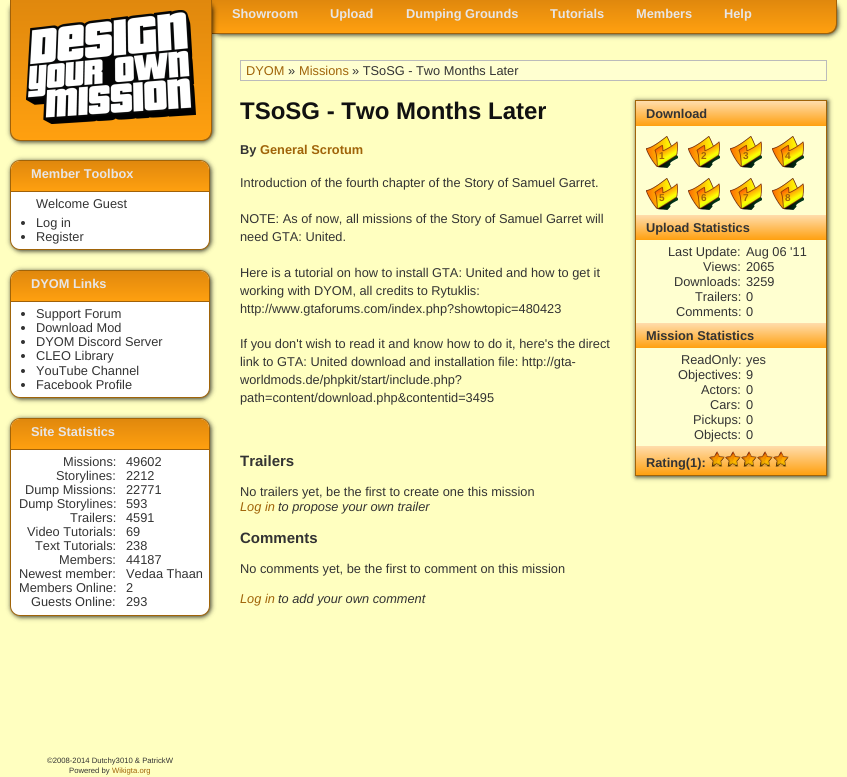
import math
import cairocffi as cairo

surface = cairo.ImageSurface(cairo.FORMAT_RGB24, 847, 777)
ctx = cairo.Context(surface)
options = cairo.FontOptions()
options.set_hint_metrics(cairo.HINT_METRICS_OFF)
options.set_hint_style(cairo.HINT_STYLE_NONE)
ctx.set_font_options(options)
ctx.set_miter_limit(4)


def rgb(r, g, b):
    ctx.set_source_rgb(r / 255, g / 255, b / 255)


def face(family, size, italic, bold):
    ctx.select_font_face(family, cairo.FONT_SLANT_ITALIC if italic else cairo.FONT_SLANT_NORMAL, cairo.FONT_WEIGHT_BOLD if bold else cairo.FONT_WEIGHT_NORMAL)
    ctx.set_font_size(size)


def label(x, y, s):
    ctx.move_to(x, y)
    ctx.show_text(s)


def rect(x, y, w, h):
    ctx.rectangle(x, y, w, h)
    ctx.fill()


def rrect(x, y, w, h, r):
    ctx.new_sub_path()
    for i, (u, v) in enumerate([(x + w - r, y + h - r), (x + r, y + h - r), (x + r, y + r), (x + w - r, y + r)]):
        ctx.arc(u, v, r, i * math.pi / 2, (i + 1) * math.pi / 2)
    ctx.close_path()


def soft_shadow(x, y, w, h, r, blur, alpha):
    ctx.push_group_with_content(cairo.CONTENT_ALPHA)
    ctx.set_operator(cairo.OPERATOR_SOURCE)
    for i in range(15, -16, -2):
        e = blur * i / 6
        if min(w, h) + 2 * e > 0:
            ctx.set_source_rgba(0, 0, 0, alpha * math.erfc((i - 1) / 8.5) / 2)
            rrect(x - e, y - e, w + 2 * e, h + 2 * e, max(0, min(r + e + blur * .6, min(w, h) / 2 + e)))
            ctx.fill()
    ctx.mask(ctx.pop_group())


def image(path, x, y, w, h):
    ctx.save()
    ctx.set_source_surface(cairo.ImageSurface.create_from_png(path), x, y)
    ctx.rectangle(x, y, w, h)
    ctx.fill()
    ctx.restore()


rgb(255, 255, 192)
ctx.paint()
rgb(0, 0, 0)
soft_shadow(211, 1, 627, 34, 10, 2.5, 0.8)
gradient = cairo.LinearGradient(210, 0, 210, 33)
gradient.add_color_stop_rgba(0, 0.878, 0.533, 0.051, 1)
gradient.add_color_stop_rgba(1, 1, 0.627, 0.059, 1)
ctx.set_source(gradient)
ctx.new_path()
ctx.move_to(210, 0)
ctx.line_to(836, 0)
ctx.line_to(836, 24)
ctx.curve_to(836, 29, 832, 33, 827, 33)
ctx.line_to(210, 33)
ctx.close_path()
ctx.fill()
rgb(160, 97, 9)
ctx.set_fill_rule(cairo.FILL_RULE_EVEN_ODD)
ctx.new_path()
ctx.move_to(210, 0)
ctx.line_to(837, 0)
ctx.line_to(837, 24)
ctx.curve_to(837, 30, 833, 34, 827, 34)
ctx.line_to(210, 34)
ctx.close_path()
ctx.move_to(210, 0)
ctx.line_to(836, 0)
ctx.line_to(836, 24)
ctx.curve_to(836, 29, 832, 33, 827, 33)
ctx.line_to(210, 33)
ctx.close_path()
ctx.fill()
rgb(0, 0, 0)
soft_shadow(11, 1, 202, 141, 10, 2.5, 0.8)
gradient = cairo.LinearGradient(11, 0, 11, 140)
gradient.add_color_stop_rgba(0, 0.878, 0.533, 0.051, 1)
gradient.add_color_stop_rgba(1, 1, 0.627, 0.059, 1)
ctx.set_source(gradient)
ctx.new_path()
ctx.move_to(11, 0)
ctx.line_to(211, 0)
ctx.line_to(211, 131)
ctx.curve_to(211, 136, 207, 140, 202, 140)
ctx.line_to(20, 140)
ctx.curve_to(15, 140, 11, 136, 11, 131)
ctx.close_path()
ctx.fill()
rgb(160, 97, 9)
ctx.new_path()
ctx.move_to(10, 0)
ctx.line_to(212, 0)
ctx.line_to(212, 131)
ctx.curve_to(212, 137, 208, 141, 202, 141)
ctx.line_to(20, 141)
ctx.curve_to(14, 141, 10, 137, 10, 131)
ctx.close_path()
ctx.move_to(11, 0)
ctx.line_to(211, 0)
ctx.line_to(211, 131)
ctx.curve_to(211, 136, 207, 140, 202, 140)
ctx.line_to(20, 140)
ctx.curve_to(15, 140, 11, 136, 11, 131)
ctx.close_path()
ctx.fill()
image('image0.png', 26, 10, 170, 114)
face('Liberation Sans', 12.8, 0, 1)
rgb(231, 229, 229)
label(232, 18, 'Showroom')
label(330, 18, 'Upload')
label(406, 18, 'Dumping Grounds')
label(550, 18, 'Tutorials')
label(636, 18, 'Members')
label(724, 18, 'Help')
rgb(0, 0, 0)
soft_shadow(11, 161, 200, 90, 10, 2.5, 0.8)
rgb(255, 255, 255)
rrect(10.5, 160.5, 199, 89, 9.5)
ctx.fill_preserve()
rgb(160, 100, 9)
ctx.set_line_width(1)
ctx.stroke()
gradient = cairo.LinearGradient(11, 161, 11, 191)
gradient.add_color_stop_rgba(0, 0.878, 0.533, 0.051, 1)
gradient.add_color_stop_rgba(1, 1, 0.627, 0.059, 1)
ctx.set_source(gradient)
ctx.new_path()
ctx.move_to(20, 161)
ctx.line_to(200, 161)
ctx.curve_to(205, 161, 209, 165, 209, 170)
ctx.line_to(209, 191)
ctx.line_to(11, 191)
ctx.line_to(11, 170)
ctx.curve_to(11, 165, 15, 161, 20, 161)
ctx.close_path()
ctx.fill()
rgb(160, 97, 9)
rect(11, 191, 198, 1)
rgb(231, 229, 229)
label(31, 178, 'Member Toolbox')
face('Liberation Sans', 12.8, 0, 0)
rgb(51, 51, 51)
label(36, 208, 'Welcome Guest')
ctx.new_path()
ctx.arc(23, 223, 2, 0, 2 * math.pi)
ctx.fill()
label(36, 227, 'Log in')
ctx.new_path()
ctx.arc(23, 237, 2, 0, 2 * math.pi)
ctx.fill()
label(36, 241, 'Register')
rgb(0, 0, 0)
soft_shadow(11, 271, 200, 128, 10, 2.5, 0.8)
rgb(255, 255, 255)
rrect(10.5, 270.5, 199, 127, 9.5)
ctx.fill_preserve()
rgb(160, 100, 9)
ctx.stroke()
gradient = cairo.LinearGradient(11, 271, 11, 301)
gradient.add_color_stop_rgba(0, 0.878, 0.533, 0.051, 1)
gradient.add_color_stop_rgba(1, 1, 0.627, 0.059, 1)
ctx.set_source(gradient)
ctx.new_path()
ctx.move_to(20, 271)
ctx.line_to(200, 271)
ctx.curve_to(205, 271, 209, 275, 209, 280)
ctx.line_to(209, 301)
ctx.line_to(11, 301)
ctx.line_to(11, 280)
ctx.curve_to(11, 275, 15, 271, 20, 271)
ctx.close_path()
ctx.fill()
rgb(160, 97, 9)
rect(11, 301, 198, 1)
face('Liberation Sans', 12.8, 0, 1)
rgb(231, 229, 229)
label(31, 288, 'DYOM Links')
rgb(51, 51, 51)
ctx.new_path()
ctx.arc(23, 314, 2, 0, 2 * math.pi)
ctx.fill()
face('Liberation Sans', 12.8, 0, 0)
label(36, 318, 'Support Forum')
ctx.new_path()
ctx.arc(23, 328, 2, 0, 2 * math.pi)
ctx.fill()
label(36, 332, 'Download Mod')
ctx.new_path()
ctx.arc(23, 342, 2, 0, 2 * math.pi)
ctx.fill()
label(36, 346, 'DYOM Discord Server')
ctx.new_path()
ctx.arc(23, 356, 2, 0, 2 * math.pi)
ctx.fill()
label(36, 360, 'CLEO Library')
ctx.new_path()
ctx.arc(23, 371, 2, 0, 2 * math.pi)
ctx.fill()
label(36, 375, 'YouTube Channel')
ctx.new_path()
ctx.arc(23, 385, 2, 0, 2 * math.pi)
ctx.fill()
label(36, 389, 'Facebook Profile')
rgb(0, 0, 0)
soft_shadow(11, 419, 200, 198, 10, 2.5, 0.8)
rgb(255, 255, 255)
rrect(10.5, 418.5, 199, 197, 9.5)
ctx.fill_preserve()
rgb(160, 100, 9)
ctx.stroke()
gradient = cairo.LinearGradient(11, 419, 11, 449)
gradient.add_color_stop_rgba(0, 0.878, 0.533, 0.051, 1)
gradient.add_color_stop_rgba(1, 1, 0.627, 0.059, 1)
ctx.set_source(gradient)
ctx.new_path()
ctx.move_to(20, 419)
ctx.line_to(200, 419)
ctx.curve_to(205, 419, 209, 423, 209, 428)
ctx.line_to(209, 449)
ctx.line_to(11, 449)
ctx.line_to(11, 428)
ctx.curve_to(11, 423, 15, 419, 20, 419)
ctx.close_path()
ctx.fill()
rgb(160, 97, 9)
rect(11, 449, 198, 1)
face('Liberation Sans', 12.8, 0, 1)
rgb(231, 229, 229)
label(31, 436, 'Site Statistics')
face('Liberation Sans', 12.8, 0, 0)
rgb(51, 51, 51)
label(63, 466, 'Missions:')
label(126, 466, '49602')
label(56, 480, 'Storylines:')
label(126, 480, '2212')
label(25, 494, 'Dump Missions:')
label(126, 494, '22771')
label(19, 508, 'Dump Storylines:')
label(126, 508, '593')
label(70, 522, 'Trailers:')
label(126, 522, '4591')
label(27, 536, 'Video Tutorials:')
label(126, 536, '69')
label(35, 550, 'Text Tutorials:')
label(126, 550, '238')
label(59, 564, 'Members:')
label(126, 564, '44187')
label(19, 578, 'Newest member:')
label(126, 578, 'Vedaa Thaan')
label(19, 592, 'Members Online:')
label(126, 592, '2')
label(31, 606, 'Guests Online:')
label(126, 606, '293')
face('Liberation Sans', 7.7, 0, 0)
label(47, 763, '©2008-2014 Dutchy3010 & PatrickW')
label(69, 773, 'Powered by')
rgb(160, 100, 9)
label(112, 773, 'Wikigta.org')
rgb(255, 255, 208)
ctx.rectangle(240.5, 60.5, 586, 20)
ctx.fill_preserve()
rgb(187, 187, 187)
ctx.stroke()
face('Liberation Sans', 12.8, 0, 0)
rgb(160, 100, 9)
label(246, 75, 'DYOM')
rgb(51, 51, 51)
label(288, 75, '»')
rgb(160, 100, 9)
label(299, 75, 'Missions')
rgb(51, 51, 51)
label(352, 75, '» TSoSG - Two Months Later')
face('Liberation Sans', 24, 0, 1)
rgb(17, 17, 17)
label(240, 119, 'TSoSG - Two Months Later')
rgb(0, 0, 0)
soft_shadow(636, 101, 192, 376, 0, 2.5, 0.8)
rgb(255, 255, 208)
rect(636, 126, 190, 320)
ctx.rectangle(635.5, 100.5, 191, 375)
rgb(160, 100, 9)
ctx.stroke()
gradient = cairo.LinearGradient(636, 101, 636, 126)
gradient.add_color_stop_rgba(0, 1, 0.867, 0.678, 1)
gradient.add_color_stop_rgba(1, 1, 0.627, 0.059, 1)
ctx.set_source(gradient)
rect(636, 101, 190, 25)
face('Liberation Sans', 12.8, 0, 1)
rgb(51, 51, 51)
label(646, 118, 'Download')
image('image1.png', 646, 136, 32, 32)
face('Liberation Sans', 10, 0, 1)
rgb(160, 100, 9)
label(659, 159, '1')
image('image1.png', 688, 136, 32, 32)
label(701, 159, '2')
image('image1.png', 730, 136, 32, 32)
label(743, 159, '3')
image('image1.png', 772, 136, 32, 32)
label(785, 159, '4')
image('image1.png', 646, 178, 32, 32)
label(659, 201, '5')
image('image1.png', 688, 178, 32, 32)
label(701, 201, '6')
image('image1.png', 730, 178, 32, 32)
label(743, 201, '7')
image('image1.png', 772, 178, 32, 32)
label(785, 201, '8')
gradient = cairo.LinearGradient(636, 215, 636, 240)
gradient.add_color_stop_rgba(0, 1, 0.867, 0.678, 1)
gradient.add_color_stop_rgba(1, 1, 0.627, 0.059, 1)
ctx.set_source(gradient)
rect(636, 215, 190, 25)
face('Liberation Sans', 12.8, 0, 1)
rgb(51, 51, 51)
label(646, 232, 'Upload Statistics')
face('Liberation Sans', 12.8, 0, 0)
label(668, 256, 'Last Update:')
label(746, 256, 'Aug 06 \'11')
label(703, 271, 'Views:')
label(746, 271, '2065')
label(674, 286, 'Downloads:')
label(746, 286, '3259')
label(695, 301, 'Trailers:')
label(746, 301, '0')
label(676, 316, 'Comments:')
label(746, 316, '0')
gradient = cairo.LinearGradient(636, 323, 636, 348)
gradient.add_color_stop_rgba(0, 1, 0.867, 0.678, 1)
gradient.add_color_stop_rgba(1, 1, 0.627, 0.059, 1)
ctx.set_source(gradient)
rect(636, 323, 190, 25)
face('Liberation Sans', 12.8, 0, 1)
rgb(51, 51, 51)
label(646, 340, 'Mission Statistics')
face('Liberation Sans', 12.8, 0, 0)
label(681, 364, 'ReadOnly:')
label(746, 364, 'yes')
label(678, 379, 'Objectives:')
label(746, 379, '9')
label(701, 394, 'Actors:')
label(746, 394, '0')
label(710, 409, 'Cars:')
label(746, 409, '0')
label(693, 424, 'Pickups:')
label(746, 424, '0')
label(694, 439, 'Objects:')
label(746, 439, '0')
gradient = cairo.LinearGradient(636, 446, 636, 475)
gradient.add_color_stop_rgba(0, 1, 0.867, 0.678, 1)
gradient.add_color_stop_rgba(1, 1, 0.627, 0.059, 1)
ctx.set_source(gradient)
rect(636, 446, 190, 29)
face('Liberation Sans', 12.8, 0, 1)
rgb(51, 51, 51)
label(646, 467, 'Rating(1):')
image('image2.png', 709, 451, 16, 16)
image('image2.png', 725, 451, 16, 16)
image('image2.png', 741, 451, 16, 16)
image('image2.png', 757, 451, 16, 16)
image('image2.png', 773, 451, 16, 16)
label(240, 154, 'By')
rgb(160, 100, 9)
label(260, 154, 'General Scrotum')
face('Liberation Sans', 12.8, 0, 0)
rgb(51, 51, 51)
label(240, 187, 'Introduction of the fourth chapter of the Story of Samuel Garret.')
label(240, 223, 'NOTE: As of now, all missions of the Story of Samuel Garret will')
label(240, 241, 'need GTA: United.')
label(240, 277, 'Here is a tutorial on how to install GTA: United and how to get it')
label(240, 295, 'working with DYOM, all credits to Rytuklis:')
label(240, 313, 'http://www.gtaforums.com/index.php?showtopic=480423')
label(240, 348, 'If you don\'t wish to read it and know how to do it, here\'s the direct')
label(240, 366, 'link to GTA: United download and installation file: http://gta-')
label(240, 384, 'worldmods.de/phpkit/start/include.php?')
label(240, 402, 'path=content/download.php&contentid=3495')
face('Liberation Sans', 15, 0, 1)
label(240, 466, 'Trailers')
face('Liberation Sans', 12.8, 0, 0)
label(240, 496, 'No trailers yet, be the first to create one this mission')
face('Liberation Sans', 12.8, 1, 0)
rgb(160, 100, 9)
label(240, 511, 'Log in')
rgb(51, 51, 51)
label(278, 511, 'to propose your own trailer')
face('Liberation Sans', 15, 0, 1)
label(240, 543, 'Comments')
face('Liberation Sans', 12.8, 0, 0)
label(240, 573, 'No comments yet, be the first to comment on this mission')
face('Liberation Sans', 12.8, 1, 0)
rgb(160, 100, 9)
label(240, 603, 'Log in')
rgb(51, 51, 51)
label(278, 603, 'to add your own comment')
surface.write_to_png('render.png')
